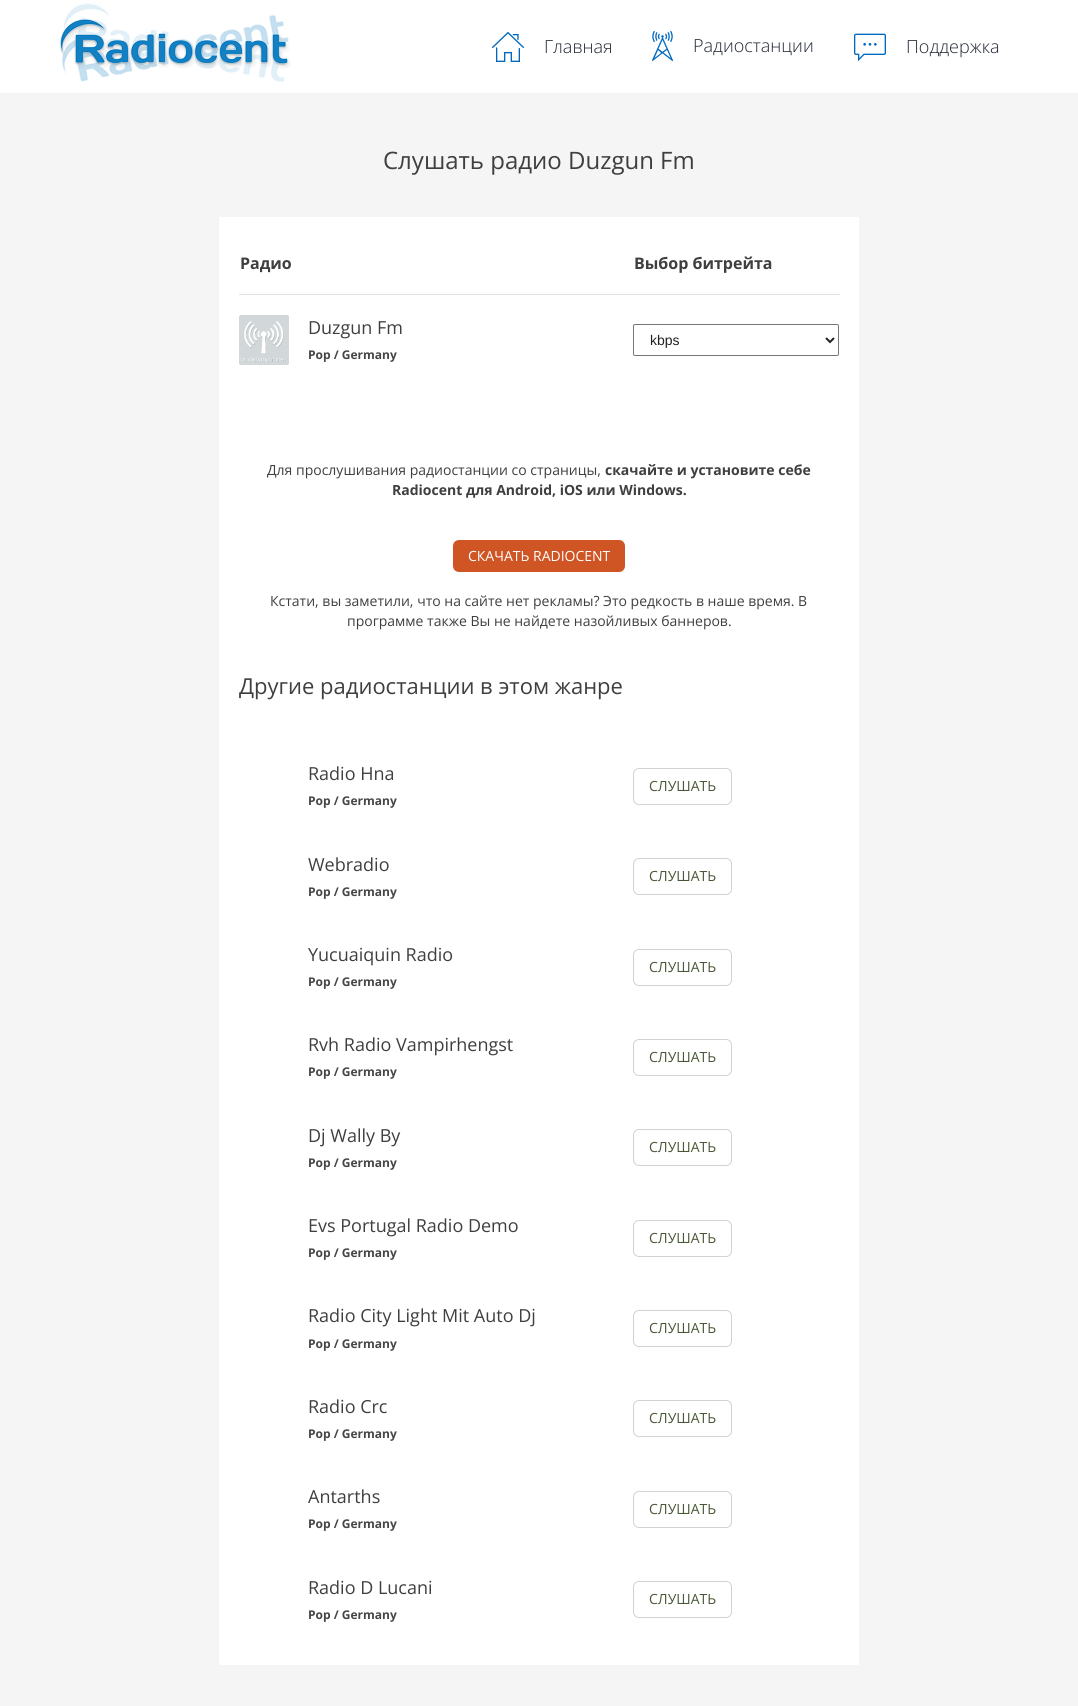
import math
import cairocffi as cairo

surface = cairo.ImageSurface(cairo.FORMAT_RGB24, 1078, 1706)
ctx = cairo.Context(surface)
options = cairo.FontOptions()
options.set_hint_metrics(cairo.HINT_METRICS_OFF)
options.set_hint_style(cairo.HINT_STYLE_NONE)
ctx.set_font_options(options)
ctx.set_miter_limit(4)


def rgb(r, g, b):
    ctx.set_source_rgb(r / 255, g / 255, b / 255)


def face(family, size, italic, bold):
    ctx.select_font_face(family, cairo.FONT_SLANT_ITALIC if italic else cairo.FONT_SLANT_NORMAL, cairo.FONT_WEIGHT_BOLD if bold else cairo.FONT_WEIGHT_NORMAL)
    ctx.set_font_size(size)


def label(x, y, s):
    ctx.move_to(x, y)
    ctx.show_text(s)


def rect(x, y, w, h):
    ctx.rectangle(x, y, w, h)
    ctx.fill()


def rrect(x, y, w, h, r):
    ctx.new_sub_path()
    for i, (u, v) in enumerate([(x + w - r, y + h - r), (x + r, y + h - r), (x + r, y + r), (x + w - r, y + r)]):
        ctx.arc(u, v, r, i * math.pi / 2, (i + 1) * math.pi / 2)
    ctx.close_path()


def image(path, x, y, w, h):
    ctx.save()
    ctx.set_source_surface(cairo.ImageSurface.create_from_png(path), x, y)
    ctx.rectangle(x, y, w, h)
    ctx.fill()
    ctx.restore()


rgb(245, 245, 245)
ctx.paint()
rgb(255, 255, 255)
rect(0, 0, 1078, 93)
image('image0.png', 59, 3, 232, 79)
image('image1.png', 492, 31, 32, 31)
face('Open Sans Light', 18, 0, 0)
rgb(32, 38, 51)
label(544, 53, 'Главная')
image('image2.png', 652, 31, 21, 30)
label(693, 52, 'Радиостанции')
image('image3.png', 854, 33, 32, 29)
label(906, 53, 'Поддержка')
face('Open Sans', 24, 0, 0)
rgb(63, 63, 63)
label(383, 169, 'Слушать радио Duzgun Fm')
rgb(255, 255, 255)
rect(219, 217, 640, 1448)
face('Open Sans', 16, 0, 1)
rgb(63, 63, 63)
label(240, 269, 'Радио')
rgb(226, 226, 226)
rect(239, 294, 601, 1)
rgb(63, 63, 63)
label(634, 269, 'Выбор битрейта')
image('image4.png', 239, 315, 50, 50)
face('Open Sans', 18, 0, 0)
label(308, 334, 'Duzgun Fm')
face('Open Sans', 12, 0, 1)
rgb(70, 70, 70)
label(308, 359, 'Pop / Germany')
rrect(633.5, 324.5, 205, 31, 1.5)
rgb(118, 118, 118)
ctx.set_line_width(1)
ctx.stroke()
ctx.new_path()
ctx.move_to(826, 338)
ctx.line_to(830, 342)
ctx.line_to(834, 338)
rgb(34, 34, 34)
ctx.set_line_width(2)
ctx.stroke()
face('Liberation Sans', 14, 0, 0)
label(650, 345, 'kbps')
face('Open Sans', 14, 0, 0)
rgb(63, 63, 63)
label(267, 475, 'Для прослушивания радиостанции со страницы,')
face('Open Sans', 14, 0, 1)
label(605, 475, 'скачайте и установите себе')
label(392, 495, 'Radiocent для Android, iOS или Windows.')
rgb(208, 85, 37)
rrect(453, 540, 172, 32, 6)
ctx.fill()
face('Open Sans', 14, 0, 0)
rgb(255, 255, 255)
label(468, 561, 'СКАЧАТЬ RADIOCENT')
rgb(63, 63, 63)
label(270, 606, 'Кстати, вы заметили, что на сайте нет рекламы? Это редкость в наше время. В')
label(347, 626, 'программе также Вы не найдете назойливых баннеров.')
face('Open Sans', 22, 0, 0)
label(239, 694, 'Другие радиостанции в этом жанре')
face('Open Sans', 18, 0, 0)
label(308, 780, 'Radio Hna')
face('Open Sans', 12, 0, 1)
rgb(70, 70, 70)
label(308, 805, 'Pop / Germany')
rrect(633.5, 768.5, 98, 36, 5.5)
rgb(210, 210, 210)
ctx.set_line_width(1)
ctx.stroke()
face('Open Sans', 14, 0, 0)
rgb(72, 87, 53)
label(649, 791, 'СЛУШАТЬ')
face('Open Sans', 18, 0, 0)
rgb(63, 63, 63)
label(308, 871, 'Webradio')
face('Open Sans', 12, 0, 1)
rgb(70, 70, 70)
label(308, 896, 'Pop / Germany')
rrect(633.5, 858.5, 98, 36, 5.5)
rgb(210, 210, 210)
ctx.stroke()
face('Open Sans', 14, 0, 0)
rgb(72, 87, 53)
label(649, 881, 'СЛУШАТЬ')
face('Open Sans', 18, 0, 0)
rgb(63, 63, 63)
label(308, 961, 'Yucuaiquin Radio')
face('Open Sans', 12, 0, 1)
rgb(70, 70, 70)
label(308, 986, 'Pop / Germany')
rrect(633.5, 949.5, 98, 36, 5.5)
rgb(210, 210, 210)
ctx.stroke()
face('Open Sans', 14, 0, 0)
rgb(72, 87, 53)
label(649, 972, 'СЛУШАТЬ')
face('Open Sans', 18, 0, 0)
rgb(63, 63, 63)
label(308, 1051, 'Rvh Radio Vampirhengst')
face('Open Sans', 12, 0, 1)
rgb(70, 70, 70)
label(308, 1076, 'Pop / Germany')
rrect(633.5, 1039.5, 98, 36, 5.5)
rgb(210, 210, 210)
ctx.stroke()
face('Open Sans', 14, 0, 0)
rgb(72, 87, 53)
label(649, 1062, 'СЛУШАТЬ')
face('Open Sans', 18, 0, 0)
rgb(63, 63, 63)
label(308, 1142, 'Dj Wally By')
face('Open Sans', 12, 0, 1)
rgb(70, 70, 70)
label(308, 1167, 'Pop / Germany')
rrect(633.5, 1129.5, 98, 36, 5.5)
rgb(210, 210, 210)
ctx.stroke()
face('Open Sans', 14, 0, 0)
rgb(72, 87, 53)
label(649, 1152, 'СЛУШАТЬ')
face('Open Sans', 18, 0, 0)
rgb(63, 63, 63)
label(308, 1232, 'Evs Portugal Radio Demo')
face('Open Sans', 12, 0, 1)
rgb(70, 70, 70)
label(308, 1257, 'Pop / Germany')
rrect(633.5, 1220.5, 98, 36, 5.5)
rgb(210, 210, 210)
ctx.stroke()
face('Open Sans', 14, 0, 0)
rgb(72, 87, 53)
label(649, 1243, 'СЛУШАТЬ')
face('Open Sans', 18, 0, 0)
rgb(63, 63, 63)
label(308, 1322, 'Radio City Light Mit Auto Dj')
face('Open Sans', 12, 0, 1)
rgb(70, 70, 70)
label(308, 1348, 'Pop / Germany')
rrect(633.5, 1310.5, 98, 36, 5.5)
rgb(210, 210, 210)
ctx.stroke()
face('Open Sans', 14, 0, 0)
rgb(72, 87, 53)
label(649, 1333, 'СЛУШАТЬ')
face('Open Sans', 18, 0, 0)
rgb(63, 63, 63)
label(308, 1413, 'Radio Crc')
face('Open Sans', 12, 0, 1)
rgb(70, 70, 70)
label(308, 1438, 'Pop / Germany')
rrect(633.5, 1400.5, 98, 36, 5.5)
rgb(210, 210, 210)
ctx.stroke()
face('Open Sans', 14, 0, 0)
rgb(72, 87, 53)
label(649, 1423, 'СЛУШАТЬ')
face('Open Sans', 18, 0, 0)
rgb(63, 63, 63)
label(308, 1503, 'Antarths')
face('Open Sans', 12, 0, 1)
rgb(70, 70, 70)
label(308, 1528, 'Pop / Germany')
rrect(633.5, 1491.5, 98, 36, 5.5)
rgb(210, 210, 210)
ctx.stroke()
face('Open Sans', 14, 0, 0)
rgb(72, 87, 53)
label(649, 1514, 'СЛУШАТЬ')
face('Open Sans', 18, 0, 0)
rgb(63, 63, 63)
label(308, 1594, 'Radio D Lucani')
face('Open Sans', 12, 0, 1)
rgb(70, 70, 70)
label(308, 1619, 'Pop / Germany')
rrect(633.5, 1581.5, 98, 36, 5.5)
rgb(210, 210, 210)
ctx.stroke()
face('Open Sans', 14, 0, 0)
rgb(72, 87, 53)
label(649, 1604, 'СЛУШАТЬ')
surface.write_to_png('render.png')
